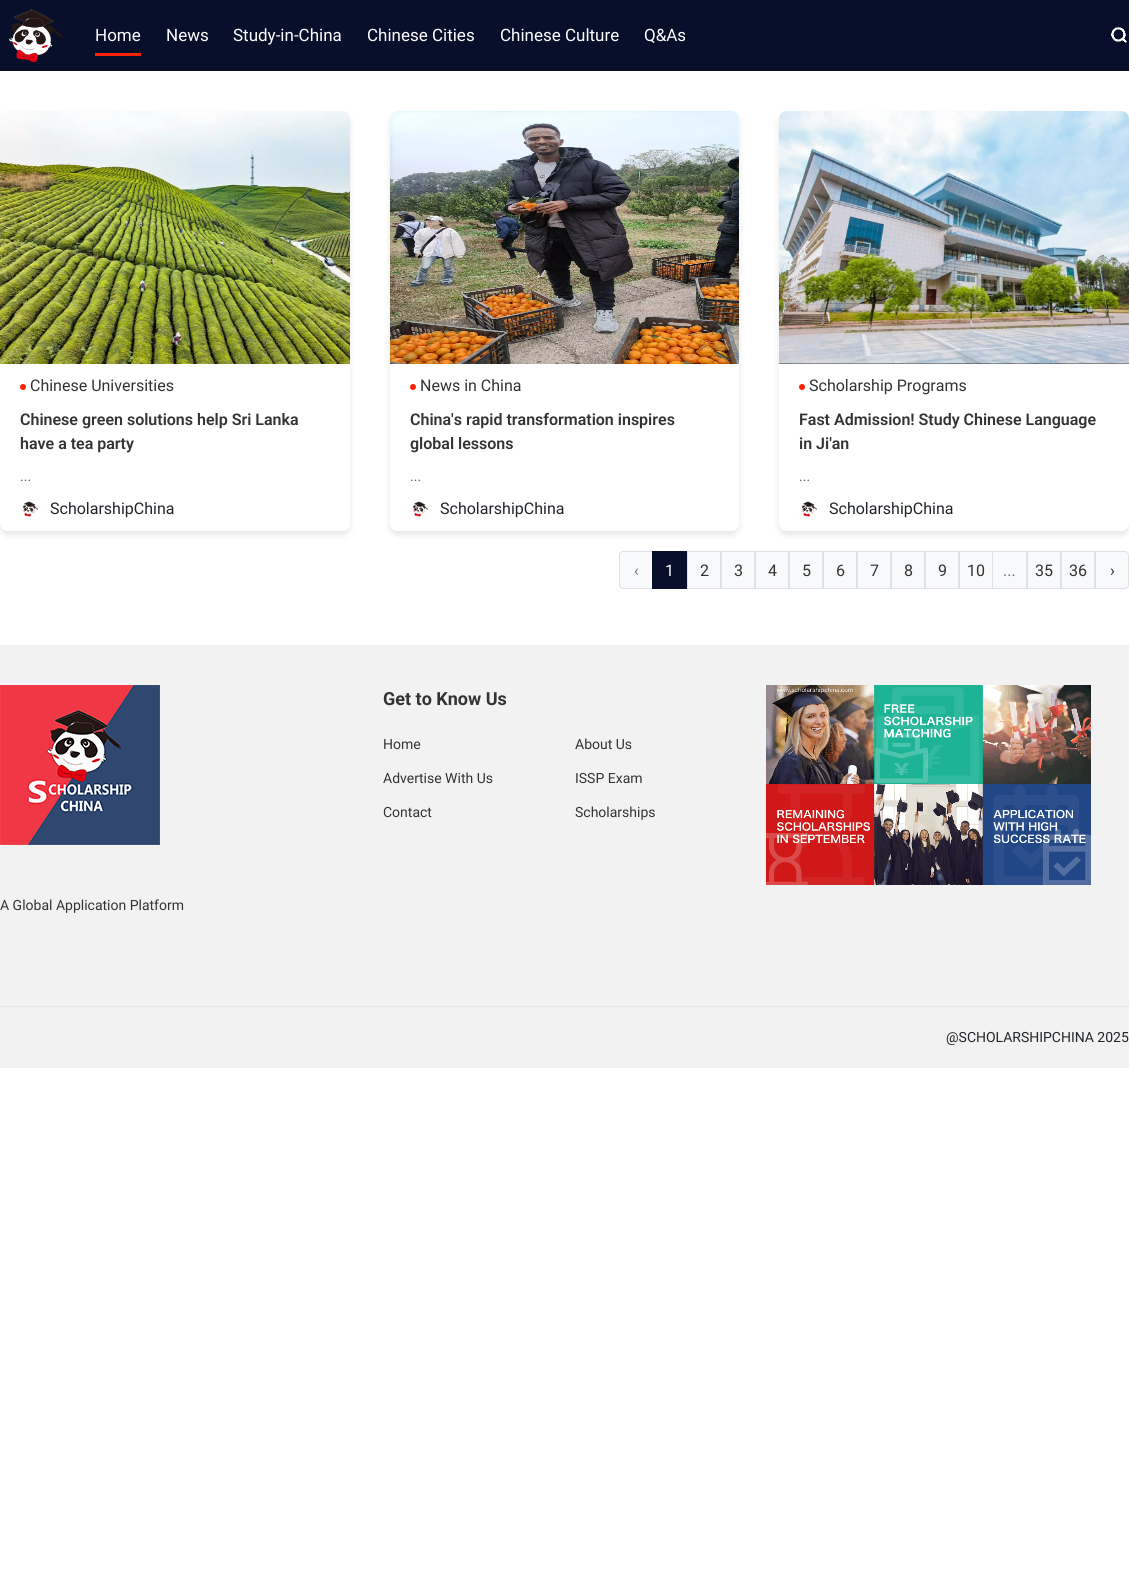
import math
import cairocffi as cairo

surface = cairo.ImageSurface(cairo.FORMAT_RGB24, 1129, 1588)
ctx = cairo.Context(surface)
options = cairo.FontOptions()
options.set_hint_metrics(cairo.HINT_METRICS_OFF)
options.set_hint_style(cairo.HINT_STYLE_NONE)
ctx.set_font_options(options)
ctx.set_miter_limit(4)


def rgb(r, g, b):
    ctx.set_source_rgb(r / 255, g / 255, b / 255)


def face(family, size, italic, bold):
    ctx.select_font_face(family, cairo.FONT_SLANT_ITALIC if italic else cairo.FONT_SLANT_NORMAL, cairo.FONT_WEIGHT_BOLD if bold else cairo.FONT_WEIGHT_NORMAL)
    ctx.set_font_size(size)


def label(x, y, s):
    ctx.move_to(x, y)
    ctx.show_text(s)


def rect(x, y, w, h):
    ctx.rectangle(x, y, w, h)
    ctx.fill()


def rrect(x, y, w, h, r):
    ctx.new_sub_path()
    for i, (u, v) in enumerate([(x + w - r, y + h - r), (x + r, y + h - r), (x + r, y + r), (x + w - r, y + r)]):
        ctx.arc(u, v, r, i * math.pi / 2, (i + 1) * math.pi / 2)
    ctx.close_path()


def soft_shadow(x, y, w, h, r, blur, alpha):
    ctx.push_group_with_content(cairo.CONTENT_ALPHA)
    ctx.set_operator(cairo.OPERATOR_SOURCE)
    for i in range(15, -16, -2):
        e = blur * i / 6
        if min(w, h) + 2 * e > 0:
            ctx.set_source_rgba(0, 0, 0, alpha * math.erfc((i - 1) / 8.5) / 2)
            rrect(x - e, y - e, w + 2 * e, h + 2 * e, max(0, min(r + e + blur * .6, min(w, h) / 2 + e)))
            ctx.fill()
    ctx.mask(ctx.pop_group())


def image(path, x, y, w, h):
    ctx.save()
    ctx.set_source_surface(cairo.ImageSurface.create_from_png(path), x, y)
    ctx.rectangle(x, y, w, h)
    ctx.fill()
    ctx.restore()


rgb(255, 255, 255)
ctx.paint()
rgb(242, 242, 242)
rect(0, 645, 1129, 423)
rgb(7, 15, 43)
rect(0, 0, 1129, 71)
image('image0.png', 9, 9, 54, 54)
face('Roboto', 17, 0, 0)
rgb(255, 255, 255)
label(95, 41, 'Home')
rgb(255, 34, 0)
rect(95, 53, 46, 3)
rgb(255, 255, 255)
label(166, 41, 'News')
label(233, 41, 'Study-in-China')
label(367, 41, 'Chinese Cities')
label(500, 41, 'Chinese Culture')
label(644, 41, 'Q&As')
image('image1.png', 1111, 27, 16, 16)
ctx.save()
ctx.set_fill_rule(cairo.FILL_RULE_EVEN_ODD)
ctx.new_path()
ctx.move_to(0, 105)
ctx.line_to(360, 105)
ctx.line_to(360, 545)
ctx.line_to(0, 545)
ctx.close_path()
ctx.move_to(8, 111)
ctx.line_to(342, 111)
ctx.curve_to(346.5, 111, 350, 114.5, 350, 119)
ctx.line_to(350, 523)
ctx.curve_to(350, 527.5, 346.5, 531, 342, 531)
ctx.line_to(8, 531)
ctx.curve_to(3.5, 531, 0, 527.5, 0, 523)
ctx.line_to(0, 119)
ctx.curve_to(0, 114.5, 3.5, 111, 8, 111)
ctx.close_path()
ctx.clip()
rgb(0, 0, 0)
soft_shadow(0, 115, 350, 420, 8, 3, 0.1)
ctx.restore()
image('image2.png', 0, 111, 350, 253)
rgb(255, 34, 0)
ctx.arc(23, 387, 3, 0, 2 * math.pi)
ctx.fill()
face('Roboto', 16, 0, 0)
rgb(51, 51, 51)
label(30, 391, 'Chinese Universities')
face('Roboto SemiBold', 16, 0, 0)
label(20, 425, 'Chinese green solutions help Sri Lanka')
label(20, 449, 'have a tea party')
face('Roboto', 14, 0, 0)
rgb(102, 102, 102)
label(20, 481, '...')
image('image3.png', 22, 501, 17, 16)
face('Roboto', 16, 0, 0)
rgb(33, 37, 41)
label(50, 514, 'ScholarshipChina')
ctx.save()
ctx.set_fill_rule(cairo.FILL_RULE_EVEN_ODD)
ctx.new_path()
ctx.move_to(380, 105)
ctx.line_to(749, 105)
ctx.line_to(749, 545)
ctx.line_to(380, 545)
ctx.close_path()
ctx.move_to(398, 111)
ctx.line_to(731, 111)
ctx.curve_to(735.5, 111, 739, 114.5, 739, 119)
ctx.line_to(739, 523)
ctx.curve_to(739, 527.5, 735.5, 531, 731, 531)
ctx.line_to(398, 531)
ctx.curve_to(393.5, 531, 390, 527.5, 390, 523)
ctx.line_to(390, 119)
ctx.curve_to(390, 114.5, 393.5, 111, 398, 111)
ctx.close_path()
ctx.clip()
rgb(0, 0, 0)
soft_shadow(390, 115, 349, 420, 8, 3, 0.1)
ctx.restore()
image('image4.png', 390, 111, 349, 253)
rgb(255, 34, 0)
ctx.arc(413, 387, 3, 0, 2 * math.pi)
ctx.fill()
rgb(51, 51, 51)
label(420, 391, 'News in China')
face('Roboto SemiBold', 16, 0, 0)
label(410, 425, 'China\'s rapid transformation inspires')
label(410, 449, 'global lessons')
face('Roboto', 14, 0, 0)
rgb(102, 102, 102)
label(410, 481, '...')
image('image3.png', 412, 501, 17, 16)
face('Roboto', 16, 0, 0)
rgb(33, 37, 41)
label(440, 514, 'ScholarshipChina')
ctx.save()
ctx.set_fill_rule(cairo.FILL_RULE_EVEN_ODD)
ctx.new_path()
ctx.move_to(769, 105)
ctx.line_to(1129, 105)
ctx.line_to(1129, 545)
ctx.line_to(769, 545)
ctx.close_path()
ctx.move_to(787, 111)
ctx.line_to(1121, 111)
ctx.curve_to(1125.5, 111, 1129, 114.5, 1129, 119)
ctx.line_to(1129, 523)
ctx.curve_to(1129, 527.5, 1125.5, 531, 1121, 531)
ctx.line_to(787, 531)
ctx.curve_to(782.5, 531, 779, 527.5, 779, 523)
ctx.line_to(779, 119)
ctx.curve_to(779, 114.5, 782.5, 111, 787, 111)
ctx.close_path()
ctx.clip()
rgb(0, 0, 0)
soft_shadow(779, 115, 350, 420, 8, 3, 0.1)
ctx.restore()
image('image5.png', 779, 111, 350, 253)
rgb(255, 34, 0)
ctx.arc(802, 387, 3, 0, 2 * math.pi)
ctx.fill()
rgb(51, 51, 51)
label(809, 391, 'Scholarship Programs')
face('Roboto SemiBold', 16, 0, 0)
label(799, 425, 'Fast Admission! Study Chinese Language')
label(799, 449, 'in Ji\'an')
face('Roboto', 14, 0, 0)
rgb(102, 102, 102)
label(799, 481, '...')
image('image3.png', 801, 501, 17, 16)
face('Roboto', 16, 0, 0)
rgb(33, 37, 41)
label(829, 514, 'ScholarshipChina')
rgb(248, 249, 250)
ctx.new_path()
ctx.move_to(623, 551.5)
ctx.line_to(652.5, 551.5)
ctx.line_to(652.5, 588.5)
ctx.line_to(623, 588.5)
ctx.curve_to(621, 588.5, 619.5, 587, 619.5, 585)
ctx.line_to(619.5, 555)
ctx.curve_to(619.5, 553, 621, 551.5, 623, 551.5)
ctx.close_path()
ctx.fill_preserve()
rgb(222, 226, 230)
ctx.set_line_width(1)
ctx.stroke()
rgb(108, 117, 125)
label(634, 576, '‹')
rgb(7, 15, 43)
rect(652, 551, 35, 38)
rgb(255, 255, 255)
label(665, 576, '1')
rgb(248, 249, 250)
ctx.rectangle(687.5, 551.5, 33, 37)
ctx.fill_preserve()
rgb(222, 226, 230)
ctx.stroke()
rgb(51, 51, 51)
label(700, 576, '2')
rgb(248, 249, 250)
ctx.rectangle(721.5, 551.5, 33, 37)
ctx.fill_preserve()
rgb(222, 226, 230)
ctx.stroke()
rgb(51, 51, 51)
label(734, 576, '3')
rgb(248, 249, 250)
ctx.rectangle(755.5, 551.5, 33, 37)
ctx.fill_preserve()
rgb(222, 226, 230)
ctx.stroke()
rgb(51, 51, 51)
label(768, 576, '4')
rgb(248, 249, 250)
ctx.rectangle(789.5, 551.5, 33, 37)
ctx.fill_preserve()
rgb(222, 226, 230)
ctx.stroke()
rgb(51, 51, 51)
label(802, 576, '5')
rgb(248, 249, 250)
ctx.rectangle(823.5, 551.5, 33, 37)
ctx.fill_preserve()
rgb(222, 226, 230)
ctx.stroke()
rgb(51, 51, 51)
label(836, 576, '6')
rgb(248, 249, 250)
ctx.rectangle(857.5, 551.5, 33, 37)
ctx.fill_preserve()
rgb(222, 226, 230)
ctx.stroke()
rgb(51, 51, 51)
label(870, 576, '7')
rgb(248, 249, 250)
ctx.rectangle(891.5, 551.5, 33, 37)
ctx.fill_preserve()
rgb(222, 226, 230)
ctx.stroke()
rgb(51, 51, 51)
label(904, 576, '8')
rgb(248, 249, 250)
ctx.rectangle(925.5, 551.5, 33, 37)
ctx.fill_preserve()
rgb(222, 226, 230)
ctx.stroke()
rgb(51, 51, 51)
label(938, 576, '9')
rgb(248, 249, 250)
ctx.rectangle(959.5, 551.5, 33, 37)
ctx.fill_preserve()
rgb(222, 226, 230)
ctx.stroke()
rgb(51, 51, 51)
label(967, 576, '10')
rgb(248, 249, 250)
ctx.rectangle(1027.5, 551.5, 33, 37)
ctx.fill_preserve()
rgb(222, 226, 230)
ctx.stroke()
rgb(51, 51, 51)
label(1035, 576, '35')
rgb(248, 249, 250)
ctx.rectangle(1061.5, 551.5, 33, 37)
ctx.fill_preserve()
rgb(222, 226, 230)
ctx.stroke()
rgb(51, 51, 51)
label(1069, 576, '36')
rgb(248, 249, 250)
ctx.new_path()
ctx.move_to(1095.5, 551.5)
ctx.line_to(1125, 551.5)
ctx.curve_to(1127, 551.5, 1128.5, 553, 1128.5, 555)
ctx.line_to(1128.5, 585)
ctx.curve_to(1128.5, 587, 1127, 588.5, 1125, 588.5)
ctx.line_to(1095.5, 588.5)
ctx.close_path()
ctx.fill_preserve()
rgb(222, 226, 230)
ctx.stroke()
rgb(51, 51, 51)
label(1110, 576, '›')
rgb(248, 249, 250)
ctx.rectangle(992.5, 551.5, 34, 37)
ctx.fill_preserve()
rgb(222, 226, 230)
ctx.stroke()
rgb(108, 117, 125)
label(1003, 576, '...')
rgb(230, 230, 230)
rect(0, 1006, 1129, 1)
face('Roboto', 18, 0, 1)
rgb(51, 51, 51)
label(383, 705, 'Get to Know Us')
face('Roboto', 14, 0, 0)
label(383, 749, 'Home')
label(383, 783, 'Advertise With Us')
label(383, 817, 'Contact')
label(575, 749, 'About Us')
label(575, 783, 'ISSP Exam')
label(575, 817, 'Scholarships')
image('image6.png', 766, 685, 325, 200)
image('image7.png', 0, 685, 160, 160)
label(0, 910, 'A Global Application Platform')
rgb(33, 37, 41)
label(946, 1042, '@SCHOLARSHIPCHINA 2025')
surface.write_to_png('render.png')
